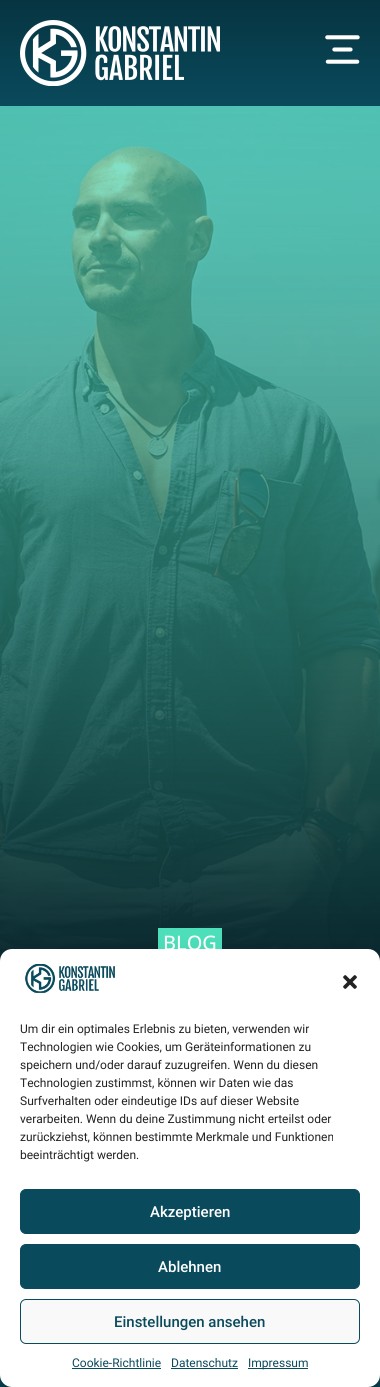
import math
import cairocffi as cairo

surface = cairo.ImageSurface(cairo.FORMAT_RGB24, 380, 1387)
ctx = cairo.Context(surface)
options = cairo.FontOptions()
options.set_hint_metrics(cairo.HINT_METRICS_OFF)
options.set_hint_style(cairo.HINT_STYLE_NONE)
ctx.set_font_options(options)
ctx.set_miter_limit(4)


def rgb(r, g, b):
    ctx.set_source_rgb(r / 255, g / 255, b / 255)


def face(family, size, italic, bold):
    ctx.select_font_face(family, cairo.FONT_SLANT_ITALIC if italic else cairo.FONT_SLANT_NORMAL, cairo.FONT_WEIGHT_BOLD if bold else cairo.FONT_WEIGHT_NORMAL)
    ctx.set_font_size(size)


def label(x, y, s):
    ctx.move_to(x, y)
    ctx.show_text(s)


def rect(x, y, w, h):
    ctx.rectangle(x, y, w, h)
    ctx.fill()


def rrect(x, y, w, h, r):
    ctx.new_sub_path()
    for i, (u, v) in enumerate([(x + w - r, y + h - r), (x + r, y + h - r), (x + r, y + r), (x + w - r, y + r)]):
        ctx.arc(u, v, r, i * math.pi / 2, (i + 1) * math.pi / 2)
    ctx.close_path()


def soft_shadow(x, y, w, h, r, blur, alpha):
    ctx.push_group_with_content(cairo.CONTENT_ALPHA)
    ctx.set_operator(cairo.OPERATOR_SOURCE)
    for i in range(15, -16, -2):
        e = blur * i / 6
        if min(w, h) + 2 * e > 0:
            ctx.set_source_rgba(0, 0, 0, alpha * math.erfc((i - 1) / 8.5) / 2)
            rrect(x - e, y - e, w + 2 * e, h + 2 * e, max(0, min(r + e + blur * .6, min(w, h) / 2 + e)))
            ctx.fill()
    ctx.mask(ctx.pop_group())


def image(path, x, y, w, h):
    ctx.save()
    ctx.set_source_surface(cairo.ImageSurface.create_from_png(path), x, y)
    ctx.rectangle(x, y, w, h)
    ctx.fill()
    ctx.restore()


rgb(255, 255, 255)
ctx.paint()
gradient = cairo.LinearGradient(190, 0, 190, 106)
gradient.add_color_stop_rgba(0, 0.027, 0.204, 0.255, 1)
gradient.add_color_stop_rgba(1, 0.035, 0.29, 0.361, 1)
ctx.set_source(gradient)
rect(0, 0, 380, 106)
image('image0.png', 20, 20, 200, 66)
image('image1.png', 325, 35, 35, 29)
image('image2.png', 0, 106, 380, 855)
rgb(76, 223, 186)
rect(158, 928, 64, 21)
face('Open Sans Medium', 20, 0, 0)
rgb(255, 255, 255)
label(163, 950, 'BLOG')
rgb(9, 74, 92)
rect(0, 1375, 380, 12)
rgb(0, 0, 0)
soft_shadow(0, 955, 380, 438, 12, 3, 0.23)
soft_shadow(0, 959, 380, 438, 12, 10, 0.19)
rgb(255, 255, 255)
rrect(0, 949, 380, 438, 12)
ctx.fill()
image('image3.png', 25, 964, 90, 29)
image('image4.png', 343, 975, 14, 14)
face('Roboto', 12, 0, 0)
rgb(34, 34, 34)
label(20, 1033, 'Um dir ein optimales Erlebnis zu bieten, verwenden wir')
label(20, 1051, 'Technologien wie Cookies, um Geräteinformationen zu')
label(20, 1069, 'speichern und/oder darauf zuzugreifen. Wenn du diesen')
label(20, 1087, 'Technologien zustimmst, können wir Daten wie das')
label(20, 1105, 'Surfverhalten oder eindeutige IDs auf dieser Website')
label(20, 1123, 'verarbeiten. Wenn du deine Zustimmung nicht erteilst oder')
label(20, 1141, 'zurückziehst, können bestimmte Merkmale und Funktionen')
label(20, 1159, 'beeinträchtigt werden.')
rgb(9, 74, 92)
rrect(20.5, 1189.5, 339, 44, 5.5)
ctx.fill_preserve()
ctx.set_line_width(1)
ctx.stroke()
face('Roboto Medium', 15, 0, 0)
rgb(255, 255, 255)
label(150, 1217, 'Akzeptieren')
rgb(9, 74, 92)
rrect(20.5, 1244.5, 339, 44, 5.5)
ctx.fill_preserve()
ctx.stroke()
rgb(255, 255, 255)
label(158, 1272, 'Ablehnen')
rgb(249, 249, 249)
rrect(20.5, 1299.5, 339, 44, 5.5)
ctx.fill_preserve()
rgb(9, 74, 92)
ctx.stroke()
label(114, 1327, 'Einstellungen ansehen')
face('Roboto', 12, 0, 0)
label(72, 1367, 'Cookie-Richtlinie')
rect(72, 1368, 89, 1)
label(171, 1367, 'Datenschutz')
rect(171, 1368, 67, 1)
rect(248, 1368, 60, 1)
label(248, 1367, 'Impressum')
surface.write_to_png('render.png')
